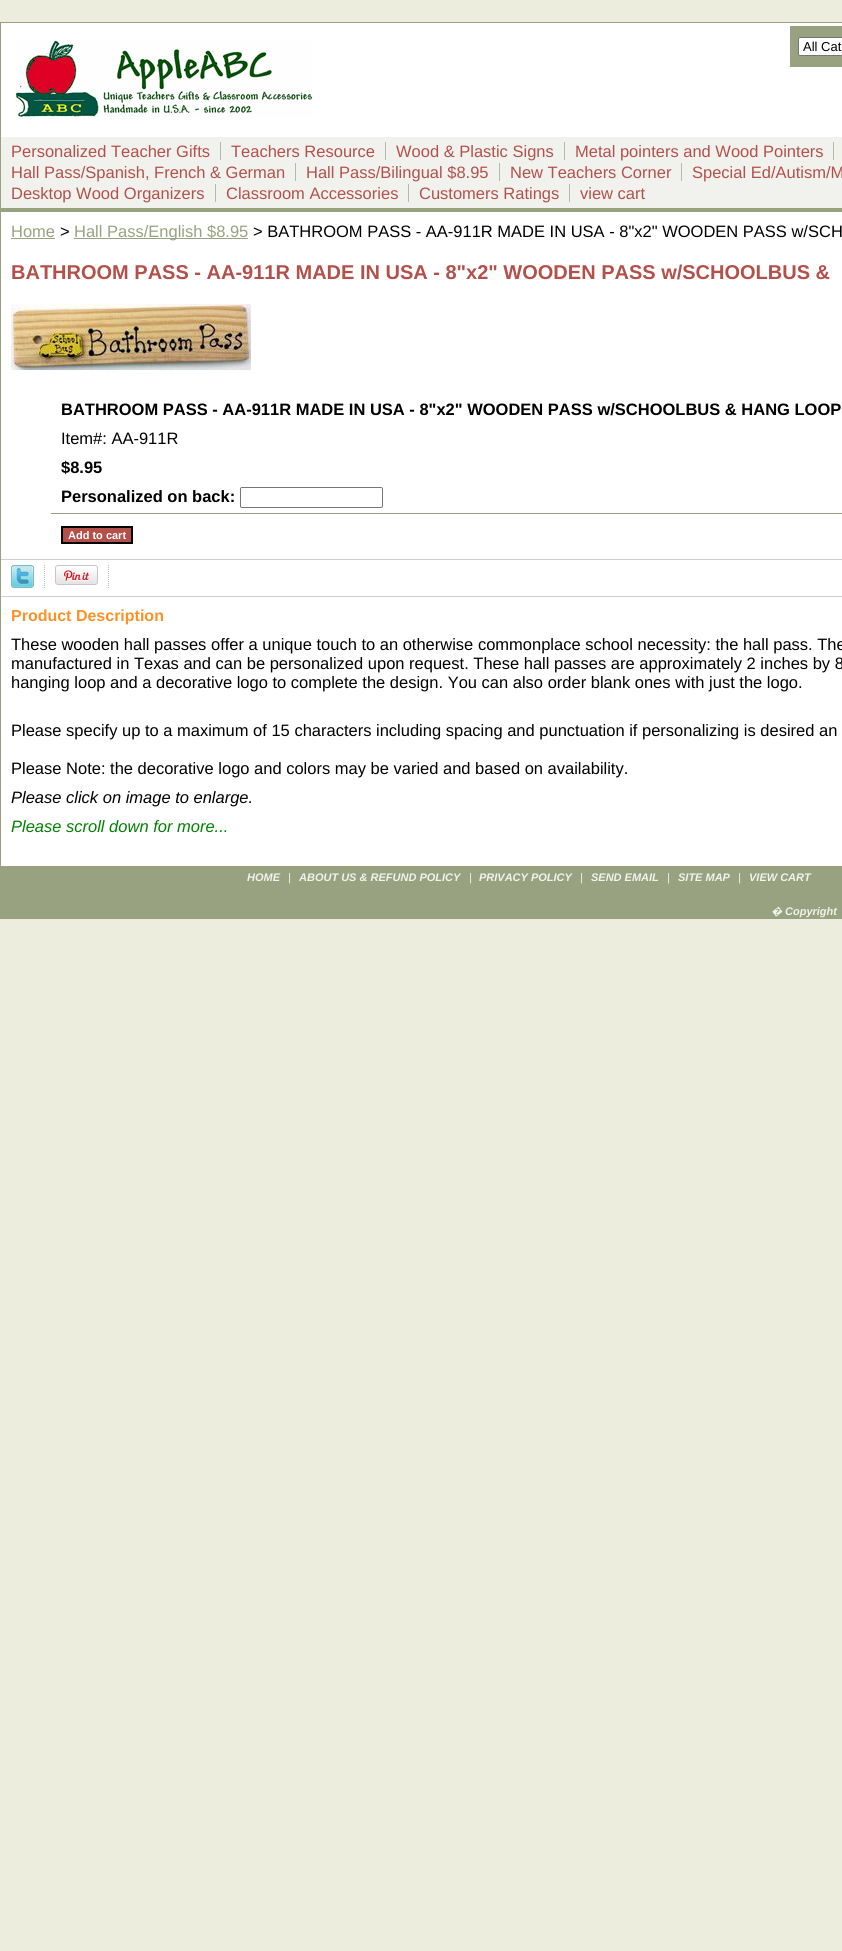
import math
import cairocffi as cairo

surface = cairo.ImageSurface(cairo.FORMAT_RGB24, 842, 1951)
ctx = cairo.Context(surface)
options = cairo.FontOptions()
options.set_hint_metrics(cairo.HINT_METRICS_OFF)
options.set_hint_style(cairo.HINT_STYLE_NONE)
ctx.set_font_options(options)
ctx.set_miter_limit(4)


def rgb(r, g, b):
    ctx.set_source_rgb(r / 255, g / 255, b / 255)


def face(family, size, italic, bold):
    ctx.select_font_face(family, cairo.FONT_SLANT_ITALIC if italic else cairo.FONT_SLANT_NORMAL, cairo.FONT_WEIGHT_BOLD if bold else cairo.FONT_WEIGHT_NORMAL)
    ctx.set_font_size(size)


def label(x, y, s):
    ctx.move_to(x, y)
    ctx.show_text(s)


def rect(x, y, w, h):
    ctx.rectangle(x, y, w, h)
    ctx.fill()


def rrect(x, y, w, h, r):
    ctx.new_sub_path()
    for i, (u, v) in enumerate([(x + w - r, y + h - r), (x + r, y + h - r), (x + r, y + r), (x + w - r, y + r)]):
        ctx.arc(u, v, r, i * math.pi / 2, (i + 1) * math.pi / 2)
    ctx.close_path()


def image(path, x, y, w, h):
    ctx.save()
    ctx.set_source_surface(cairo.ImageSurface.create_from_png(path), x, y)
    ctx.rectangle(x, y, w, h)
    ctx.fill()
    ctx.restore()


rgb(236, 237, 220)
ctx.paint()
rgb(255, 255, 255)
rect(1, 23, 841, 843)
ctx.rectangle(0.5, 22.5, 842, 896)
rgb(152, 162, 128)
ctx.set_line_width(1)
ctx.stroke()
image('image0.png', 16, 40, 296, 77)
rect(790, 26, 52, 41)
rgb(255, 255, 255)
rrect(798.5, 37.5, 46, 18, 1.5)
ctx.fill_preserve()
rgb(118, 118, 118)
ctx.stroke()
face('Liberation Sans', 13, 0, 0)
rgb(0, 0, 0)
label(803, 51, 'All Cat')
rgb(241, 242, 237)
rect(1, 137, 841, 71)
rgb(152, 162, 128)
rect(1, 208, 841, 4)
face('Liberation Sans', 16.5, 0, 0)
rgb(179, 80, 74)
label(11, 157, 'Personalized Teacher Gifts')
rgb(180, 187, 171)
rect(220, 142, 1, 18)
rgb(179, 80, 74)
label(231, 157, 'Teachers Resource')
rgb(180, 187, 171)
rect(385, 142, 1, 18)
rgb(179, 80, 74)
label(396, 157, 'Wood & Plastic Signs')
rgb(180, 187, 171)
rect(564, 142, 1, 18)
rgb(179, 80, 74)
label(575, 157, 'Metal pointers and Wood Pointers')
rgb(180, 187, 171)
rect(833, 142, 1, 18)
rgb(179, 80, 74)
label(11, 178, 'Hall Pass/Spanish, French & German')
rgb(180, 187, 171)
rect(295, 163, 1, 18)
rgb(179, 80, 74)
label(306, 178, 'Hall Pass/Bilingual $8.95')
rgb(180, 187, 171)
rect(499, 163, 1, 18)
rgb(179, 80, 74)
label(510, 178, 'New Teachers Corner')
rgb(180, 187, 171)
rect(681, 163, 1, 18)
rgb(179, 80, 74)
label(692, 178, 'Special Ed/Autism/M')
label(11, 199, 'Desktop Wood Organizers')
rgb(180, 187, 171)
rect(215, 184, 1, 18)
rgb(179, 80, 74)
label(226, 199, 'Classroom Accessories')
rgb(180, 187, 171)
rect(408, 184, 1, 18)
rgb(179, 80, 74)
label(419, 199, 'Customers Ratings')
rgb(180, 187, 171)
rect(569, 184, 1, 18)
rgb(179, 80, 74)
label(580, 199, 'view cart')
rgb(152, 162, 128)
label(11, 237, 'Home')
rect(11, 238, 44, 1)
rgb(0, 0, 0)
label(60, 237, '>')
rgb(152, 162, 128)
rect(74, 238, 174, 1)
label(74, 237, 'Hall Pass/English $8.95')
rgb(0, 0, 0)
label(253, 237, '> BATHROOM PASS - AA-911R MADE IN USA - 8"x2" WOODEN PASS w/SCH')
face('Liberation Sans', 20, 0, 1)
rgb(179, 80, 74)
label(11, 279, 'BATHROOM PASS - AA-911R MADE IN USA - 8"x2" WOODEN PASS w/SCHOOLBUS &')
image('image1.png', 11, 304, 240, 66)
face('Liberation Sans', 16.5, 0, 1)
rgb(0, 0, 0)
label(61, 415, 'BATHROOM PASS - AA-911R MADE IN USA - 8"x2" WOODEN PASS w/SCHOOLBUS & HANG LOOP')
face('Liberation Sans', 16.5, 0, 0)
label(61, 444, 'Item#: AA-911R')
face('Liberation Sans', 16.5, 0, 1)
label(61, 473, '$8.95')
label(61, 502, 'Personalized on back:')
rrect(240.5, 487.5, 142, 20, 1.5)
rgb(118, 118, 118)
ctx.stroke()
rgb(152, 162, 128)
rect(51, 513, 791, 1)
rgb(179, 80, 74)
ctx.rectangle(62, 527, 70, 16)
ctx.fill_preserve()
rgb(0, 0, 0)
ctx.set_line_width(2)
ctx.stroke()
face('Liberation Sans', 11, 0, 1)
rgb(255, 255, 255)
label(68, 539, 'Add to cart')
rgb(207, 206, 206)
rect(1, 559, 841, 1)
image('image2.png', 11, 565, 23, 23)
image('image3.png', 44, 565, 1, 23)
image('image4.png', 55, 565, 43, 20)
image('image3.png', 108, 565, 1, 23)
rect(1, 596, 841, 1)
face('Liberation Sans', 16, 0, 1)
rgb(252, 146, 39)
label(11, 621, 'Product Description')
face('Liberation Sans', 16.5, 0, 0)
rgb(0, 0, 0)
label(11, 650, 'These wooden hall passes offer a unique touch to an otherwise commonplace school necessity: the hall pass. The')
label(11, 669, 'manufactured in Texas and can be personalized upon request. These hall passes are approximately 2 inches by 8')
label(11, 688, 'hanging loop and a decorative logo to complete the design. You can also order blank ones with just the logo.')
label(11, 736, 'Please specify up to a maximum of 15 characters including spacing and punctuation if personalizing is desired an')
label(11, 774, 'Please Note: the decorative logo and colors may be varied and based on availability.')
face('Liberation Sans', 16.5, 1, 0)
label(11, 803, 'Please click on image to enlarge.')
rgb(0, 128, 0)
label(11, 832, 'Please scroll down for more...')
rgb(152, 162, 128)
rect(1, 866, 841, 52)
face('Liberation Sans', 11, 1, 1)
rgb(241, 242, 237)
label(247, 881, 'HOME')
face('Liberation Sans', 11, 1, 0)
label(288, 881, '|')
face('Liberation Sans', 11, 1, 1)
label(299, 881, 'ABOUT US & REFUND POLICY')
face('Liberation Sans', 11, 1, 0)
label(469, 881, '|')
face('Liberation Sans', 11, 1, 1)
label(479, 881, 'PRIVACY POLICY')
face('Liberation Sans', 11, 1, 0)
label(580, 881, '|')
face('Liberation Sans', 11, 1, 1)
label(591, 881, 'SEND EMAIL')
face('Liberation Sans', 11, 1, 0)
label(667, 881, '|')
face('Liberation Sans', 11, 1, 1)
label(678, 881, 'SITE MAP')
face('Liberation Sans', 11, 1, 0)
label(738, 881, '|')
face('Liberation Sans', 11, 1, 1)
label(749, 881, 'VIEW CART')
face('Noto Sans', 11, 1, 1)
label(771, 915, '�')
face('Liberation Sans', 11, 1, 1)
label(785, 915, 'Copyright')
surface.write_to_png('render.png')
